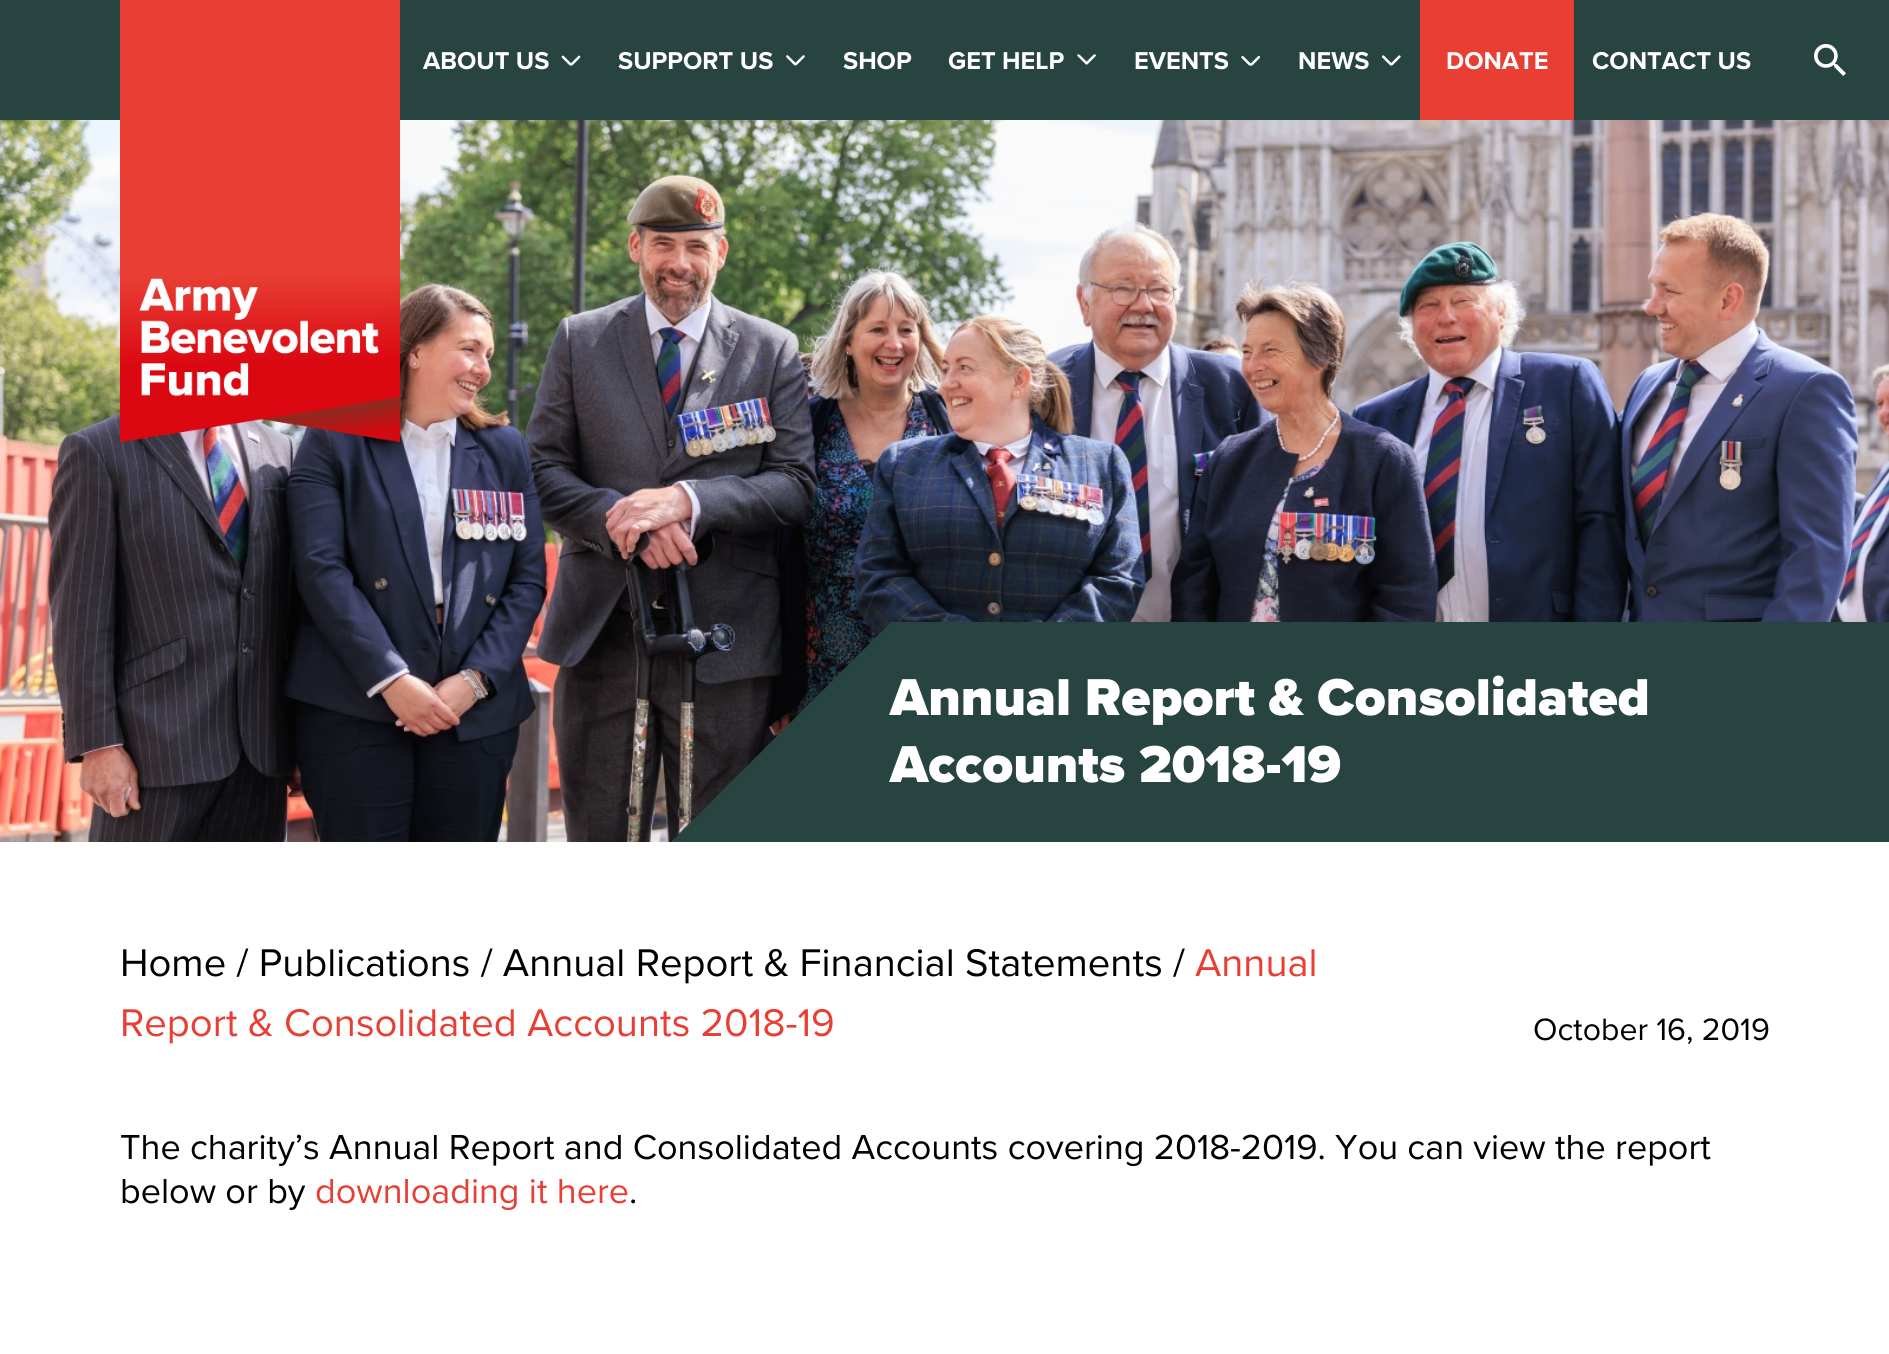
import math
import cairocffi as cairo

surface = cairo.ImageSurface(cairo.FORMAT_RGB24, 1889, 1354)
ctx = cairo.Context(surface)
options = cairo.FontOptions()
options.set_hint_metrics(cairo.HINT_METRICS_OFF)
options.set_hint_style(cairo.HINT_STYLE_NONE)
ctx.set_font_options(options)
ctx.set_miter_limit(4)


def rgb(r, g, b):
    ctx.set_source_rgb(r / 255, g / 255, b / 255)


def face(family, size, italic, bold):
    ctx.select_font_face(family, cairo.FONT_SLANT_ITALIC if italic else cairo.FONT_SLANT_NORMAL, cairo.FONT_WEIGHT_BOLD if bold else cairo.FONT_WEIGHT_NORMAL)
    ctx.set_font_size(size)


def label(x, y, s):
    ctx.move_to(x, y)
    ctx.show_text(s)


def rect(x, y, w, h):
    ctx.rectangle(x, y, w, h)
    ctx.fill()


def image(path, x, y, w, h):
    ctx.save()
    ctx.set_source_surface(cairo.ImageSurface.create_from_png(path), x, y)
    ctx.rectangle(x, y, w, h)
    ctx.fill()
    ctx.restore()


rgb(255, 255, 255)
ctx.paint()
rgb(40, 68, 65)
rect(0, 0, 1889, 120)
image('image7.png', 0, 120, 1889, 722)
image('image0.png', 120, 0, 280, 442)
face('Proxima Nova', 25.25, 0, 1)
rgb(255, 255, 255)
label(423, 69, 'ABOUT US')
image('image1.png', 561, 55, 20, 11)
label(618, 69, 'SUPPORT US')
image('image2.png', 786, 55, 19, 11)
label(843, 69, 'SHOP')
label(948, 69, 'GET HELP')
image('image3.png', 1077, 54, 19, 11)
label(1134, 69, 'EVENTS')
image('image4.png', 1241, 56, 19, 10)
label(1298, 69, 'NEWS')
image('image5.png', 1381, 55, 20, 11)
rgb(232, 62, 51)
rect(1420, 0, 154, 120)
rgb(255, 255, 255)
label(1446, 69, 'DONATE')
label(1592, 69, 'CONTACT US')
image('image6.png', 1814, 44, 32, 32)
rgb(40, 68, 65)
ctx.new_path()
ctx.move_to(892, 622)
ctx.line_to(891, 622)
ctx.line_to(672, 841)
ctx.line_to(672, 842)
ctx.line_to(892, 842)
ctx.close_path()
ctx.fill()
rect(890, 622, 999, 220)
face('Proxima Nova Black', 53.75, 0, 0)
rgb(255, 255, 255)
label(890, 715, 'Annual Report & Consolidated')
label(890, 782, 'Accounts 2018-19')
face('Proxima Nova', 40, 0, 0)
rgb(0, 0, 0)
label(120, 976, 'Home / Publications / Annual Report & Financial Statements /')
rgb(232, 62, 51)
label(1195, 976, 'Annual')
label(120, 1036, 'Report & Consolidated Accounts 2018-19')
face('Proxima Nova', 32, 0, 0)
rgb(0, 0, 0)
label(1533, 1040, 'October 16, 2019')
face('Proxima Nova', 36, 0, 0)
label(120, 1159, 'The charity’s Annual Report and Consolidated Accounts covering 2018-2019. You can view the report')
label(120, 1203, 'below or by')
rgb(232, 62, 51)
label(315, 1203, 'downloading it here')
rgb(0, 0, 0)
label(629, 1203, '.')
surface.write_to_png('render.png')
